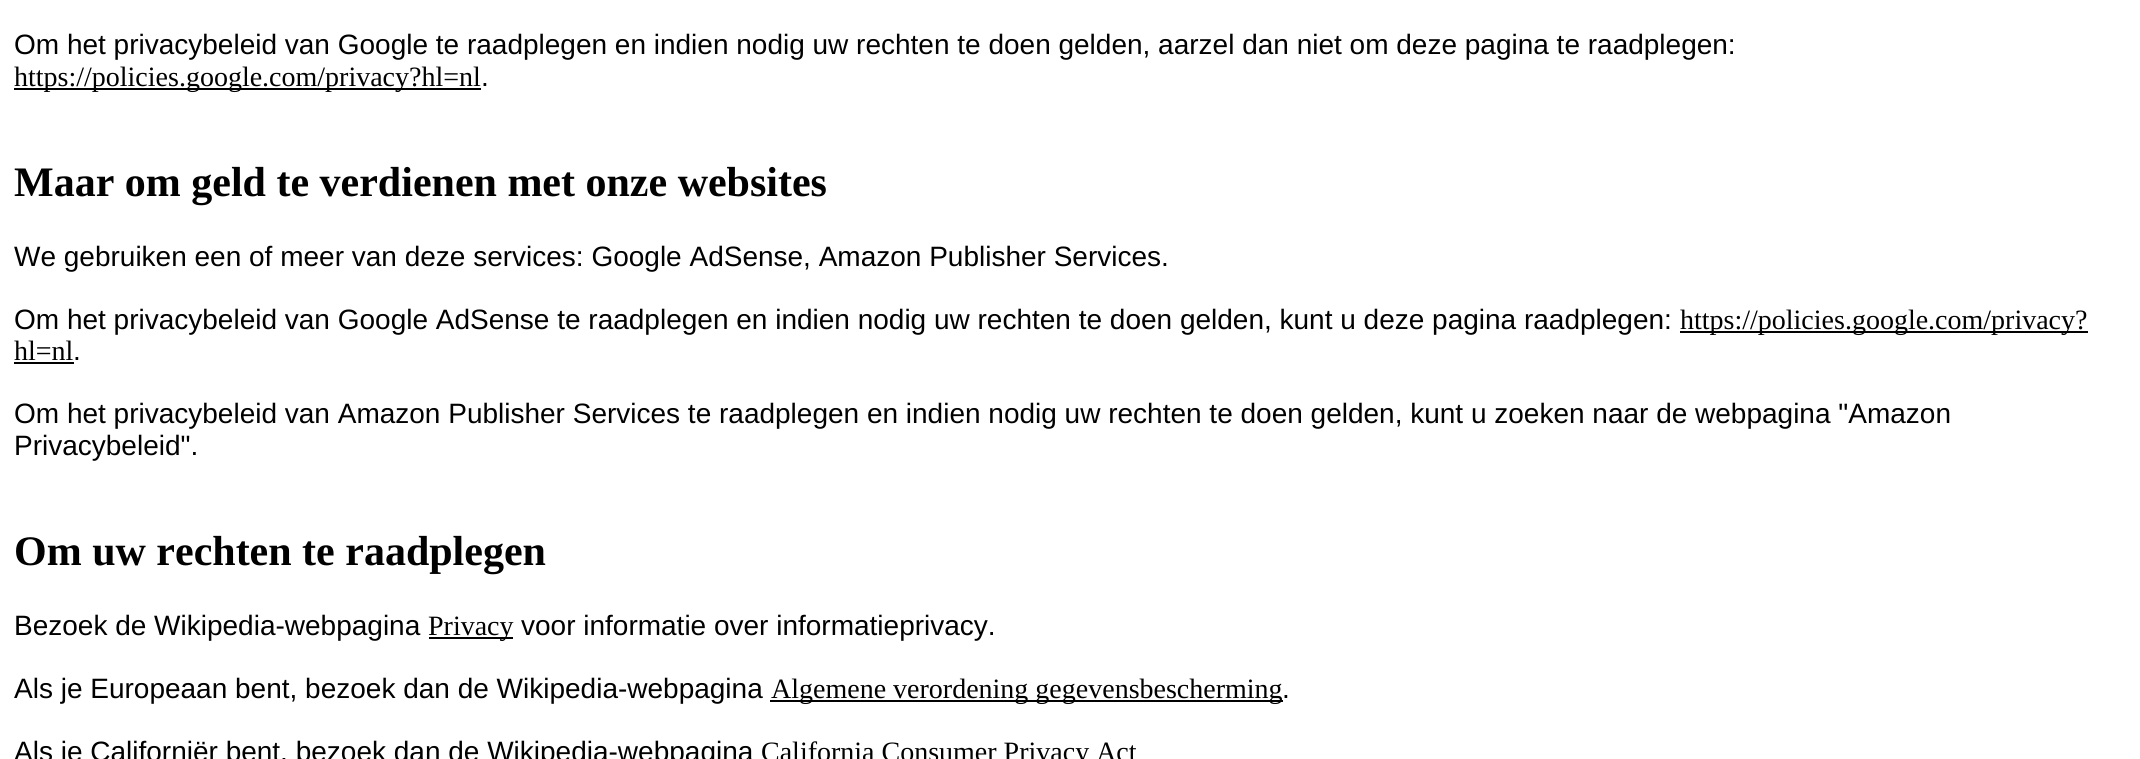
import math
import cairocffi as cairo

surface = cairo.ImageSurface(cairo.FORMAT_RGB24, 2140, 759)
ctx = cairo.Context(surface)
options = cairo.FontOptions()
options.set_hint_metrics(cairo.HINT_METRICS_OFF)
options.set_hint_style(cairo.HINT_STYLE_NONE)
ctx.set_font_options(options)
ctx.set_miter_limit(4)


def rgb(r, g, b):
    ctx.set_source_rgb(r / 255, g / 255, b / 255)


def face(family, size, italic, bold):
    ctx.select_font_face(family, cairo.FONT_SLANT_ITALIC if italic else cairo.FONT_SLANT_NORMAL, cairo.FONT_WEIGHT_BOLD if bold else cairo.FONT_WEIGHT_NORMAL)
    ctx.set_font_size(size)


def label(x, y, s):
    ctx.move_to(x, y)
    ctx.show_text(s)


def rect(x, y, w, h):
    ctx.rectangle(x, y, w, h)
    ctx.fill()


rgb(255, 255, 255)
ctx.paint()
face('Liberation Sans', 28, 0, 0)
rgb(0, 0, 0)
label(14, 54, 'Om het privacybeleid van Google te raadplegen en indien nodig uw rechten te doen gelden, aarzel dan niet om deze pagina te raadplegen:')
rect(14, 88, 467, 2)
face('Liberation Serif', 28, 0, 0)
label(14, 86, 'https://policies.google.com/privacy?hl=nl')
face('Liberation Sans', 28, 0, 0)
label(481, 86, '.')
face('Liberation Serif', 42, 0, 1)
label(14, 196, 'Maar om geld te verdienen met onze websites')
face('Liberation Sans', 28, 0, 0)
label(14, 266, 'We gebruiken een of meer van deze services: Google AdSense, Amazon Publisher Services.')
label(14, 329, 'Om het privacybeleid van Google AdSense te raadplegen en indien nodig uw rechten te doen gelden, kunt u deze pagina raadplegen:')
rect(1680, 331, 408, 2)
face('Liberation Serif', 28, 0, 0)
label(1680, 329, 'https://policies.google.com/privacy?')
label(14, 360, 'hl=nl')
rect(14, 362, 60, 2)
face('Liberation Sans', 28, 0, 0)
label(73, 360, '.')
label(14, 423, 'Om het privacybeleid van Amazon Publisher Services te raadplegen en indien nodig uw rechten te doen gelden, kunt u zoeken naar de webpagina "Amazon')
label(14, 455, 'Privacybeleid".')
face('Liberation Serif', 42, 0, 1)
label(14, 565, 'Om uw rechten te raadplegen')
face('Liberation Sans', 28, 0, 0)
label(14, 635, 'Bezoek de Wikipedia-webpagina')
rect(429, 637, 84, 2)
face('Liberation Serif', 28, 0, 0)
label(428, 635, 'Privacy')
face('Liberation Sans', 28, 0, 0)
label(521, 635, 'voor informatie over informatieprivacy.')
label(14, 698, 'Als je Europeaan bent, bezoek dan de Wikipedia-webpagina')
rect(770, 700, 513, 2)
face('Liberation Serif', 28, 0, 0)
label(771, 698, 'Algemene verordening gegevensbescherming')
face('Liberation Sans', 28, 0, 0)
label(1282, 698, '.')
label(14, 761, 'Als je Californiër bent, bezoek dan de Wikipedia-webpagina')
face('Liberation Serif', 28, 0, 0)
label(761, 761, 'California Consumer Privacy Act')
surface.write_to_png('render.png')
